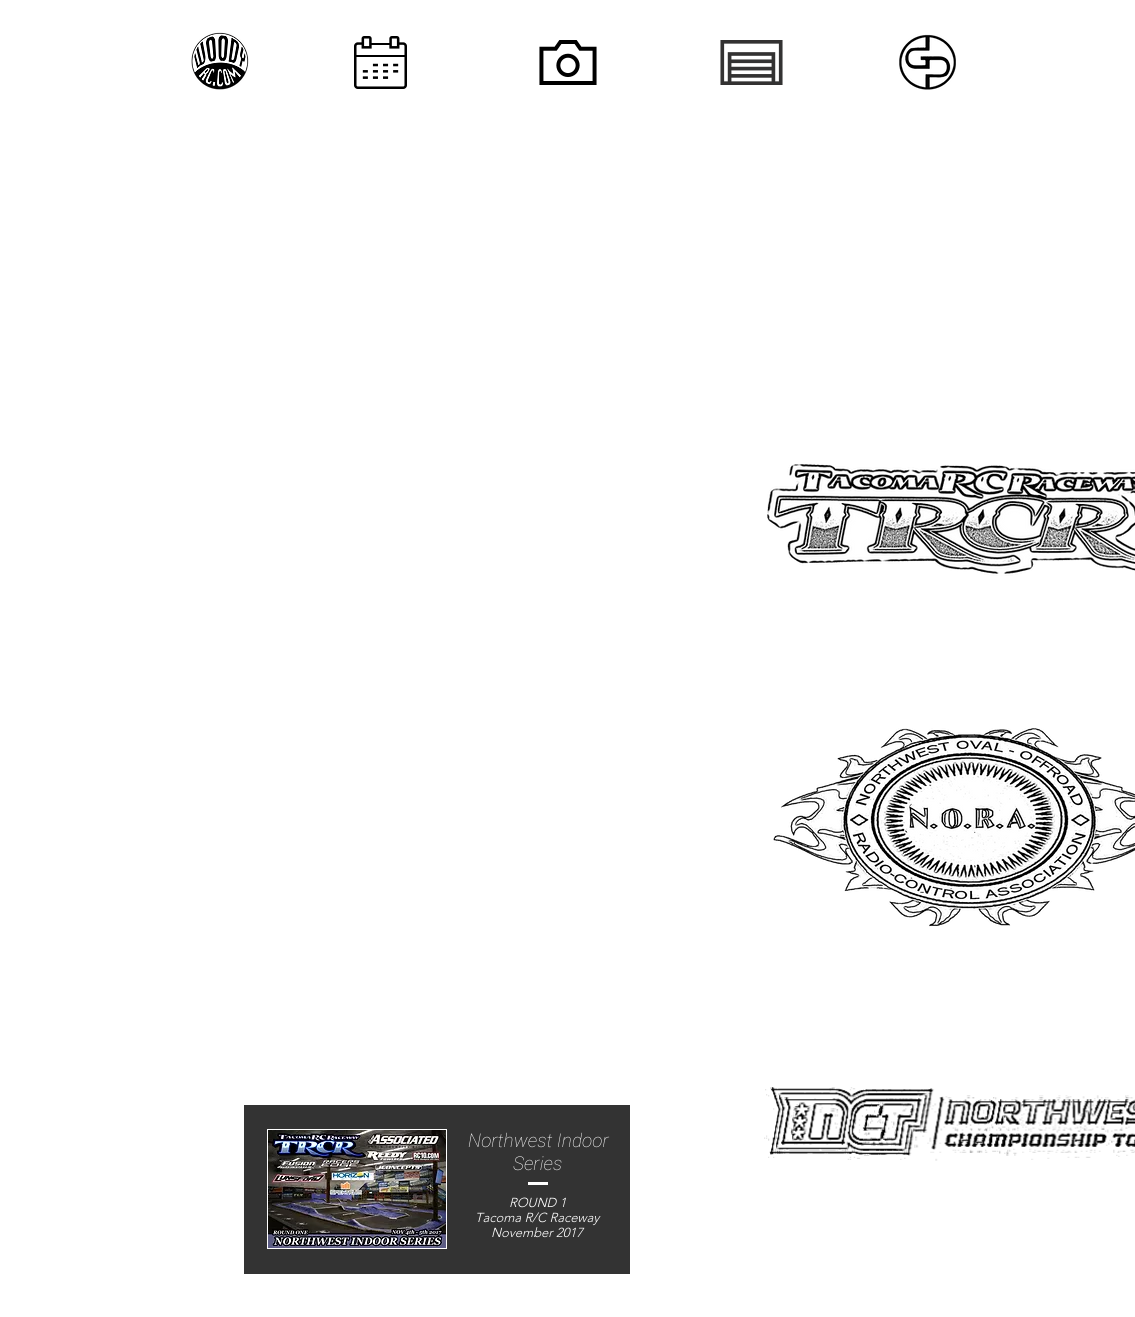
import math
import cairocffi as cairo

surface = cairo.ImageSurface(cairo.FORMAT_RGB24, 1135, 1317)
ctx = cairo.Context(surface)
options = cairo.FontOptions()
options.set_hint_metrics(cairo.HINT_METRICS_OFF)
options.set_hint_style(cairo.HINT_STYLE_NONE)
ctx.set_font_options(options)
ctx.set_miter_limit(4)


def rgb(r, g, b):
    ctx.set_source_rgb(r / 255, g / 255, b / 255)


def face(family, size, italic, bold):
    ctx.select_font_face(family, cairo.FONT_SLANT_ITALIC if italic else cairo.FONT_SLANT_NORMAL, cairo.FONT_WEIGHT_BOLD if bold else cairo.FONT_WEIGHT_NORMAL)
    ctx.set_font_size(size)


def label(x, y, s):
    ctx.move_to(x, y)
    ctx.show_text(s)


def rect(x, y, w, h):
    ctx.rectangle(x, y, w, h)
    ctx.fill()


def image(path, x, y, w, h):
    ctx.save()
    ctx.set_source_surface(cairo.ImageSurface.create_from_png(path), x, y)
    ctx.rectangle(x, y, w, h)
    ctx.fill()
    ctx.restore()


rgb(255, 255, 255)
ctx.paint()
image('image0.png', 191, 32, 58, 58)
image('image1.png', 354, 36, 53, 53)
image('image2.png', 539, 40, 58, 45)
image('image3.png', 720, 40, 63, 45)
image('image4.png', 899, 34, 57, 56)
image('image5.png', 767, 464, 368, 112)
image('image6.png', 773, 728, 362, 199)
image('image7.png', 764, 1087, 371, 74)
rgb(51, 51, 51)
rect(244, 1105, 386, 169)
rgb(255, 255, 255)
rect(267, 1129, 180, 120)
image('image8.png', 268, 1130, 178, 118)
face('Roboto Thin', 19, 1, 0)
label(468, 1147, 'Northwest Indoor')
label(513, 1170, 'Series')
rect(528, 1182, 20, 3)
face('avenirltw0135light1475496 Light', 13, 1, 0)
label(509, 1207, 'ROUND 1')
label(475, 1222, 'Tacoma R/C Raceway')
label(491, 1237, 'November 2017')
surface.write_to_png('render.png')
